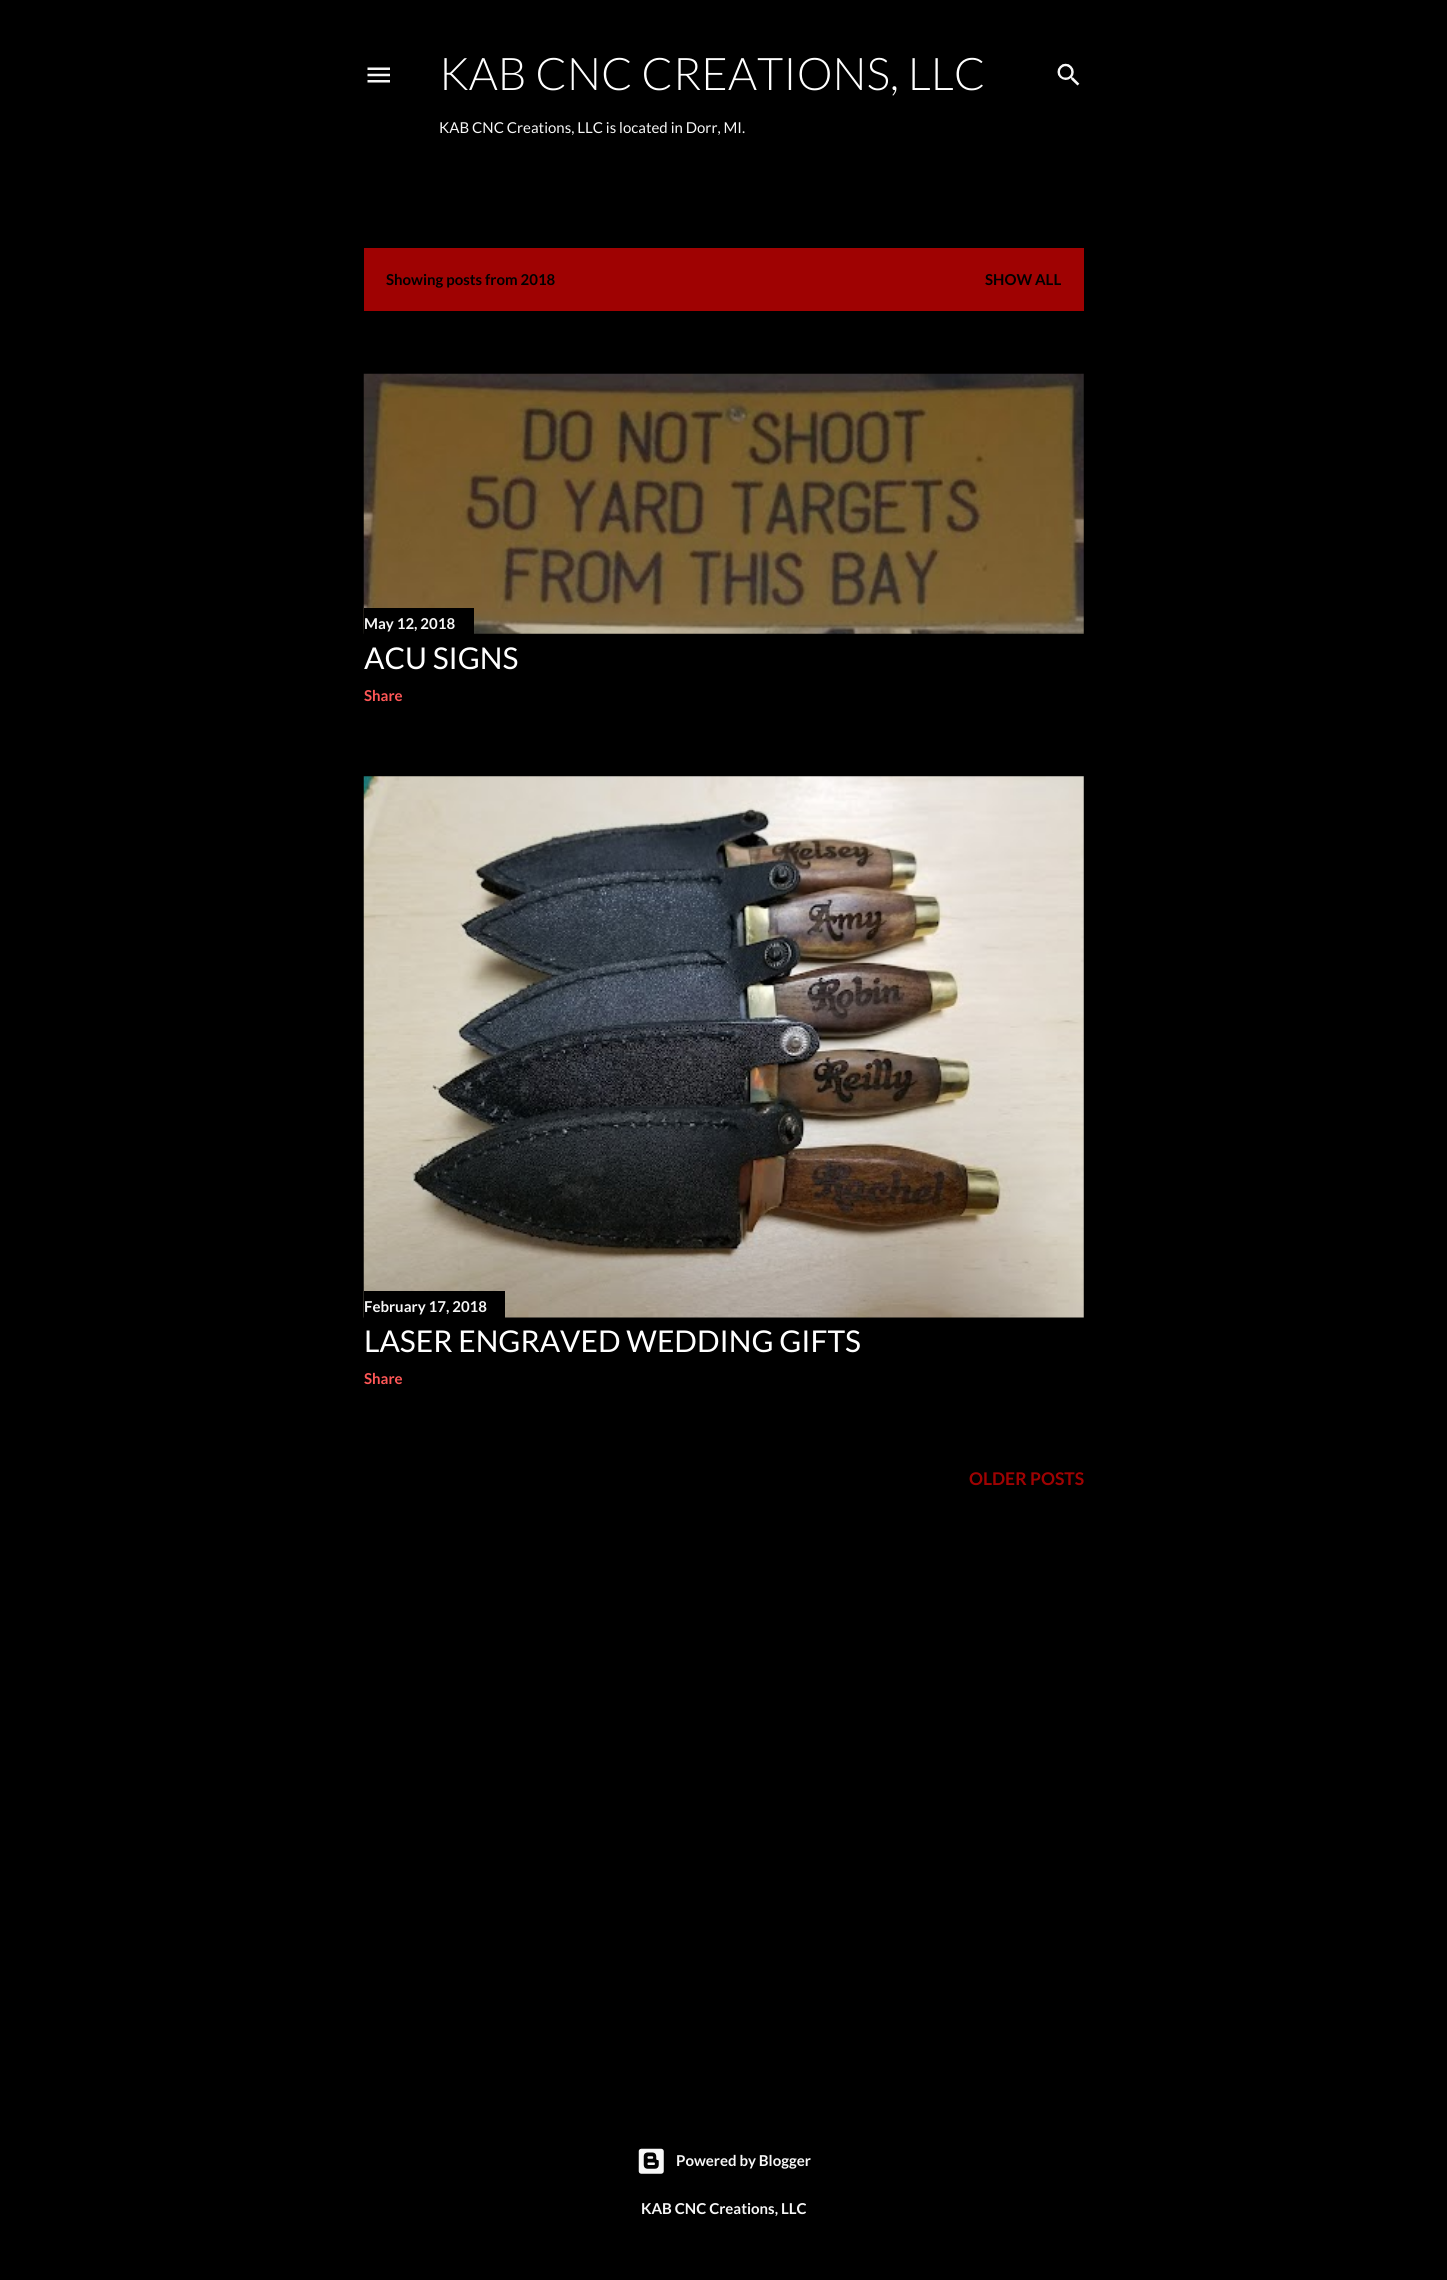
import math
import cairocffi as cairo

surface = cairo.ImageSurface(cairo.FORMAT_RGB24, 1447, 2280)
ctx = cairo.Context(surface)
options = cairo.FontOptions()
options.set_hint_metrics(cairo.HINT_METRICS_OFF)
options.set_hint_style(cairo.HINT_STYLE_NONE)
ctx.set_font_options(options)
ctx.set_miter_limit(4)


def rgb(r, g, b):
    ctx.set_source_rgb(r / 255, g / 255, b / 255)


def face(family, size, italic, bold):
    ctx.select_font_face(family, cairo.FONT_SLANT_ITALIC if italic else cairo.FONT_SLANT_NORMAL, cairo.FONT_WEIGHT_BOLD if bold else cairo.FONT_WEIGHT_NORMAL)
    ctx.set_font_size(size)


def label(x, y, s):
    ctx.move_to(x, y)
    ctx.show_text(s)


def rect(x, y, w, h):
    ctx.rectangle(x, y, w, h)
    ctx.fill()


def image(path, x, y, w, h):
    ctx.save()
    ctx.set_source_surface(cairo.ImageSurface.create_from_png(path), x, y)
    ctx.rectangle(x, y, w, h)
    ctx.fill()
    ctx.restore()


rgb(0, 0, 0)
ctx.paint()
image('image0.png', 367, 67, 23, 16)
face('Lato Light', 45, 0, 0)
rgb(255, 255, 255)
label(439, 90, 'KAB CNC CREATIONS, LLC')
face('Lato', 15, 0, 0)
rgb(247, 247, 247)
label(439, 133, 'KAB CNC Creations, LLC is located in Dorr, MI.')
image('image1.png', 1057, 63, 23, 23)
rgb(159, 2, 2)
rect(364, 248, 720, 63)
face('Lato', 15, 0, 1)
rgb(0, 0, 0)
label(386, 285, 'Showing posts from 2018')
label(985, 285, 'SHOW ALL')
image('image2.png', 363, 373, 721, 261)
rect(364, 608, 110, 26)
rgb(247, 247, 247)
label(364, 629, 'May 12, 2018')
face('Lato', 30, 0, 0)
rgb(255, 255, 255)
label(364, 669, 'ACU SIGNS')
face('Lato', 15, 0, 1)
rgb(255, 87, 87)
label(364, 701, 'Share')
image('image3.png', 363, 776, 721, 542)
rgb(0, 0, 0)
rect(364, 1291, 141, 27)
rgb(247, 247, 247)
label(364, 1312, 'February 17, 2018')
face('Lato', 30, 0, 0)
rgb(255, 255, 255)
label(364, 1352, 'LASER ENGRAVED WEDDING GIFTS')
face('Lato', 15, 0, 1)
rgb(255, 87, 87)
label(364, 1384, 'Share')
face('Lato', 17.5, 0, 1)
rgb(159, 2, 2)
label(969, 1485, 'OLDER POSTS')
image('image4.png', 638, 2148, 26, 26)
face('Lato', 15, 0, 1)
rgb(247, 247, 247)
label(676, 2166, 'Powered by Blogger')
label(641, 2214, 'KAB CNC Creations, LLC')
surface.write_to_png('render.png')
